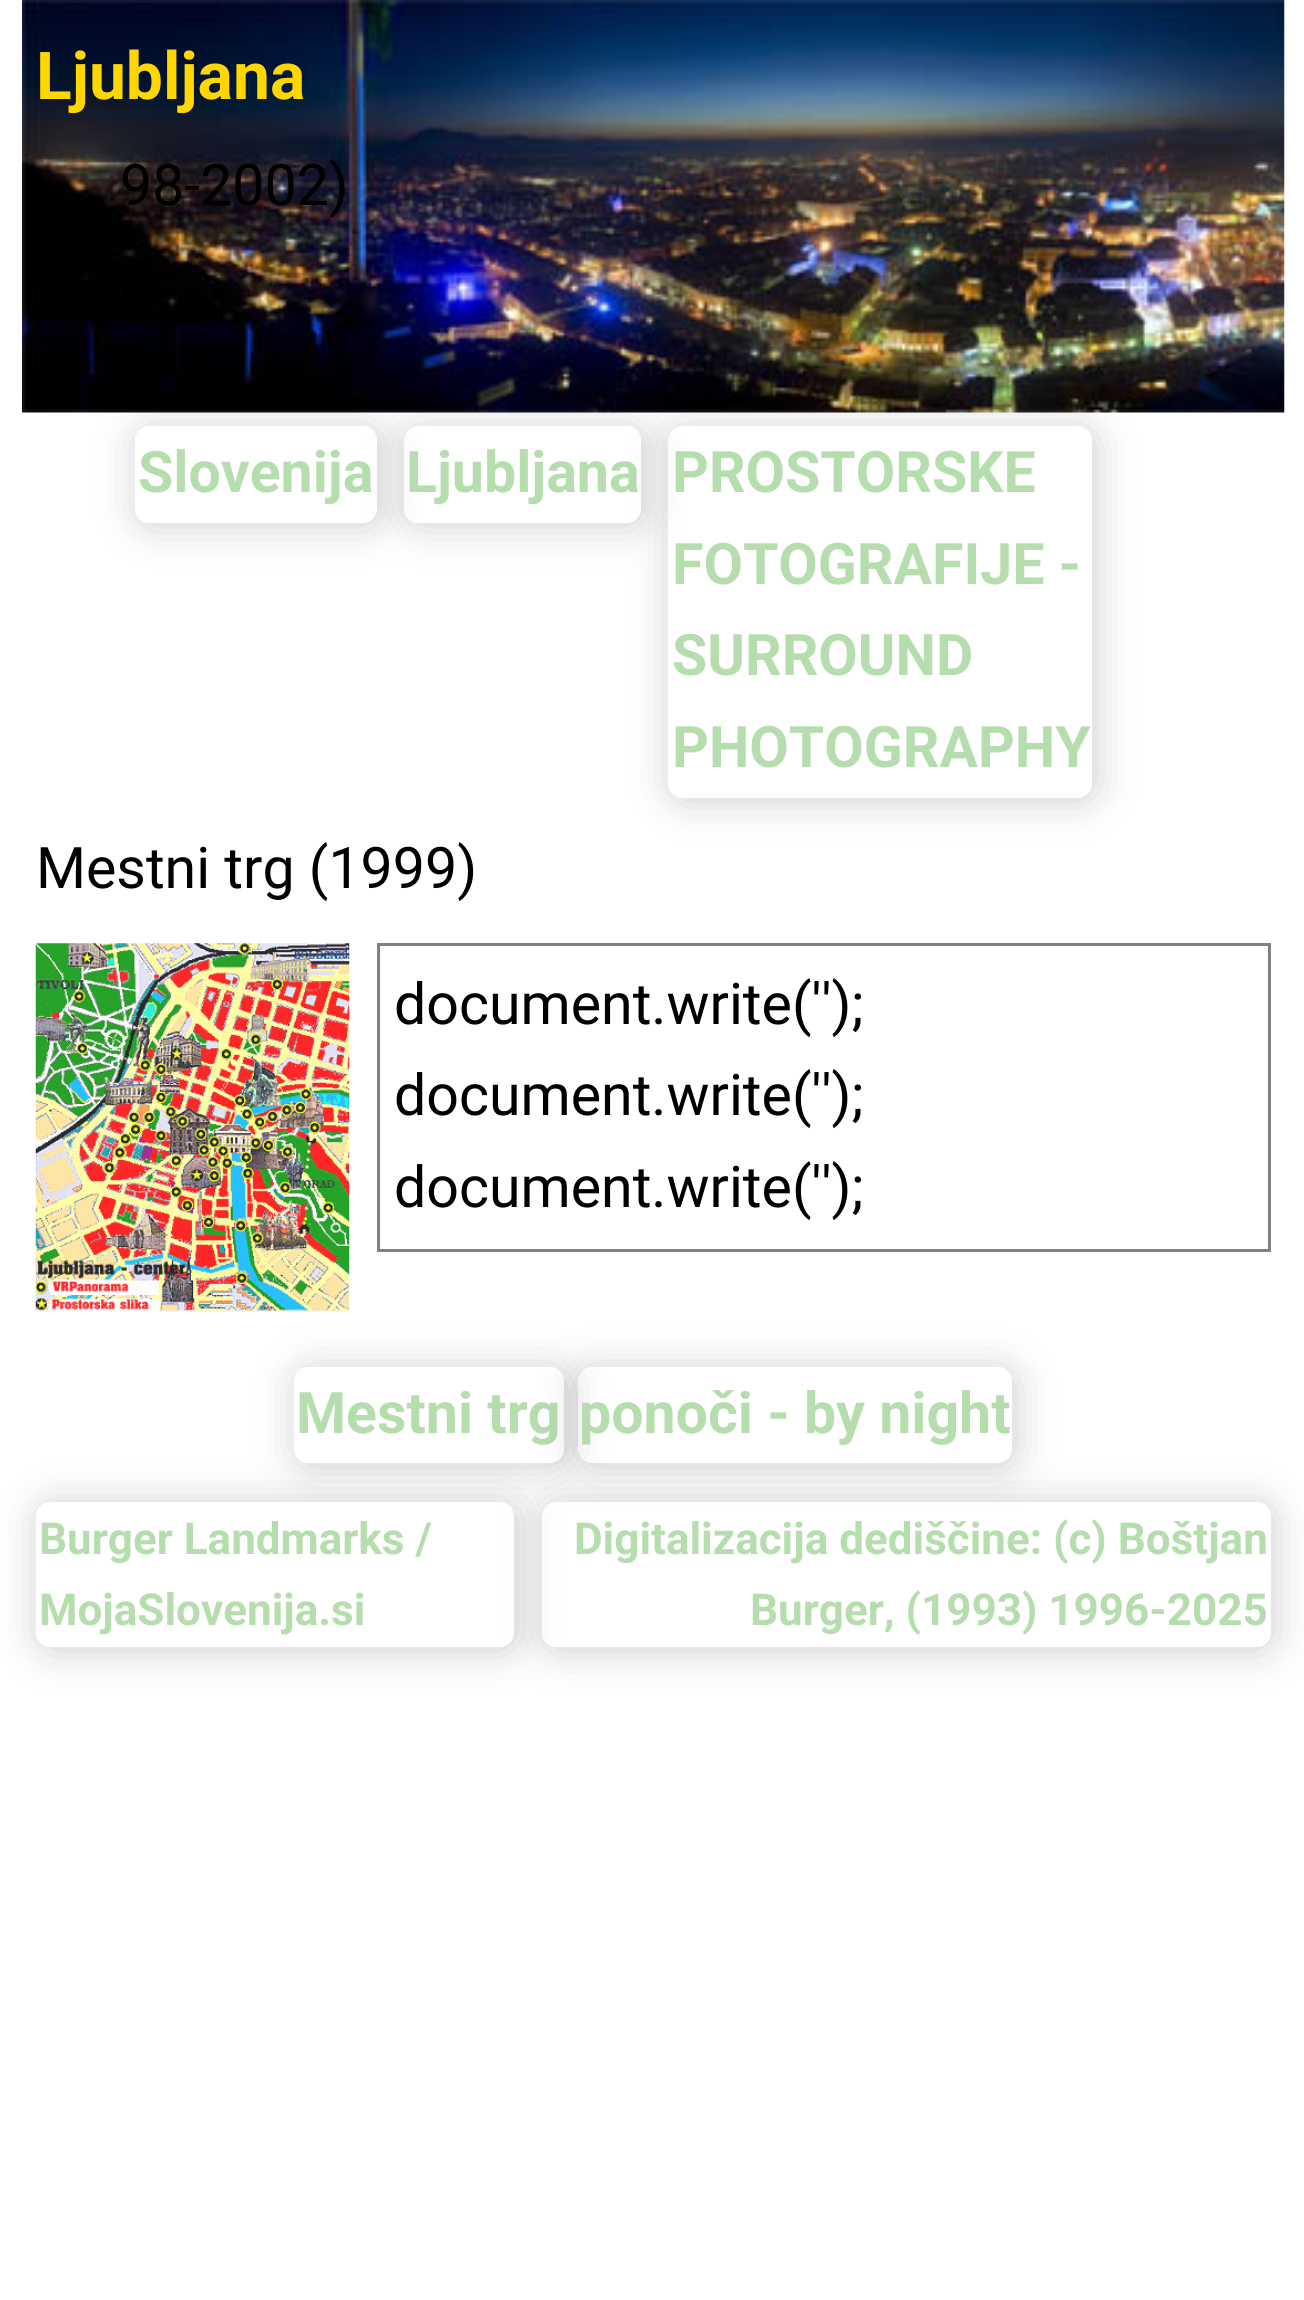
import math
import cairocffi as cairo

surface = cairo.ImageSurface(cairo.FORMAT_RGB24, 1304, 2300)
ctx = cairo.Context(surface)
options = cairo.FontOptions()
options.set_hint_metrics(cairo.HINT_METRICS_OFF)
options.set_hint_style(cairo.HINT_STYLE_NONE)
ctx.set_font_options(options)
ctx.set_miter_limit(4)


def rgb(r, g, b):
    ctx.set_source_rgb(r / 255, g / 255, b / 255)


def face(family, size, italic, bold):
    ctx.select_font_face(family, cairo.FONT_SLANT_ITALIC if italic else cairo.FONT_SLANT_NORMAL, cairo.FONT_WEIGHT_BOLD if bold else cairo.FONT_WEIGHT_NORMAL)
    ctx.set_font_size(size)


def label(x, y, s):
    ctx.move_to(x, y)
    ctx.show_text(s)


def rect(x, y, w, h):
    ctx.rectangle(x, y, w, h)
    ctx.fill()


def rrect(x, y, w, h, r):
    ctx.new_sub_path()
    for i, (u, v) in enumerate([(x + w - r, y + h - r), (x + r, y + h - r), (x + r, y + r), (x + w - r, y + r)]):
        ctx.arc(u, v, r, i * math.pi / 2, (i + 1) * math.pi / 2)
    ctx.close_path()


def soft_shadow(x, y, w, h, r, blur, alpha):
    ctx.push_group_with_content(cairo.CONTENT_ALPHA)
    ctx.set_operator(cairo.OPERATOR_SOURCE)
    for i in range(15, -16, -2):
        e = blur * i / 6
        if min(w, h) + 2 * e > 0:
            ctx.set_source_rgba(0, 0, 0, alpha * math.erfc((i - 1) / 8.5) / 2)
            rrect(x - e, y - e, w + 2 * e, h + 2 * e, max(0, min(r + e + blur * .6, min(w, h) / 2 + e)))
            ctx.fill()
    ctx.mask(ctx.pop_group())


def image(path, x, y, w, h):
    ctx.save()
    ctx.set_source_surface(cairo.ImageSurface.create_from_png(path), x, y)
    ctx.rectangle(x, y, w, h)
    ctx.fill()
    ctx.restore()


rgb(255, 255, 255)
ctx.paint()
image('image0.png', 22, 0, 1263, 413)
face('Roboto', 66, 0, 1)
rgb(255, 215, 0)
label(36, 99, 'Ljubljana')
face('Roboto', 57.25, 0, 0)
rgb(0, 0, 0)
label(120, 205, '98-2002)')
ctx.save()
ctx.set_fill_rule(cairo.FILL_RULE_EVEN_ODD)
ctx.new_path()
ctx.move_to(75, 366)
ctx.line_to(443, 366)
ctx.line_to(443, 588)
ctx.line_to(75, 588)
ctx.close_path()
ctx.move_to(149, 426)
ctx.line_to(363, 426)
ctx.curve_to(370.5, 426, 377, 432.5, 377, 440)
ctx.line_to(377, 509)
ctx.curve_to(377, 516.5, 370.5, 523, 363, 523)
ctx.line_to(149, 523)
ctx.curve_to(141.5, 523, 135, 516.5, 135, 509)
ctx.line_to(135, 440)
ctx.curve_to(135, 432.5, 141.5, 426, 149, 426)
ctx.close_path()
ctx.clip()
rgb(0, 0, 0)
soft_shadow(138, 429, 242, 96, 14, 20.5, 0.2)
ctx.restore()
face('Roboto', 57.25, 0, 1)
rgb(182, 221, 174)
label(138, 492, 'Slovenija')
ctx.save()
ctx.set_fill_rule(cairo.FILL_RULE_EVEN_ODD)
ctx.new_path()
ctx.move_to(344, 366)
ctx.line_to(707, 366)
ctx.line_to(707, 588)
ctx.line_to(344, 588)
ctx.close_path()
ctx.move_to(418, 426)
ctx.line_to(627, 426)
ctx.curve_to(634.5, 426, 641, 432.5, 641, 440)
ctx.line_to(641, 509)
ctx.curve_to(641, 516.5, 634.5, 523, 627, 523)
ctx.line_to(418, 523)
ctx.curve_to(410.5, 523, 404, 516.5, 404, 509)
ctx.line_to(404, 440)
ctx.curve_to(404, 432.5, 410.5, 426, 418, 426)
ctx.close_path()
ctx.clip()
rgb(0, 0, 0)
soft_shadow(407, 429, 237, 96, 14, 20.5, 0.2)
ctx.restore()
label(406, 492, 'Ljubljana')
ctx.save()
ctx.set_fill_rule(cairo.FILL_RULE_EVEN_ODD)
ctx.new_path()
ctx.move_to(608, 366)
ctx.line_to(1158, 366)
ctx.line_to(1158, 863)
ctx.line_to(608, 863)
ctx.close_path()
ctx.move_to(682, 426)
ctx.line_to(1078, 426)
ctx.curve_to(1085.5, 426, 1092, 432.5, 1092, 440)
ctx.line_to(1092, 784)
ctx.curve_to(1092, 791.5, 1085.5, 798, 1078, 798)
ctx.line_to(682, 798)
ctx.curve_to(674.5, 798, 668, 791.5, 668, 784)
ctx.line_to(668, 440)
ctx.curve_to(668, 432.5, 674.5, 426, 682, 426)
ctx.close_path()
ctx.clip()
rgb(0, 0, 0)
soft_shadow(671, 429, 424, 371, 14, 20.5, 0.2)
ctx.restore()
label(672, 492, 'PROSTORSKE')
label(672, 584, 'FOTOGRAFIJE -')
label(672, 675, 'SURROUND')
label(672, 767, 'PHOTOGRAPHY')
face('Roboto', 57.25, 0, 0)
rgb(0, 0, 0)
label(36, 888, 'Mestni trg (1999)')
image('image1.png', 35, 943, 315, 369)
rgb(128, 128, 128)
rect(377, 943, 894, 3)
rect(1268, 943, 3, 308)
rect(377, 1249, 894, 3)
rect(377, 943, 3, 308)
rgb(0, 0, 0)
label(394, 1024, 'document.write(\'\');')
label(394, 1115, 'document.write(\'\');')
label(394, 1207, 'document.write(\'\');')
ctx.save()
ctx.set_fill_rule(cairo.FILL_RULE_EVEN_ODD)
ctx.new_path()
ctx.move_to(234, 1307)
ctx.line_to(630, 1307)
ctx.line_to(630, 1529)
ctx.line_to(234, 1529)
ctx.close_path()
ctx.move_to(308, 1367)
ctx.line_to(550, 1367)
ctx.curve_to(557.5, 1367, 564, 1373.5, 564, 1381)
ctx.line_to(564, 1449)
ctx.curve_to(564, 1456.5, 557.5, 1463, 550, 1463)
ctx.line_to(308, 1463)
ctx.curve_to(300.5, 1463, 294, 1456.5, 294, 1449)
ctx.line_to(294, 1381)
ctx.curve_to(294, 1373.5, 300.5, 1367, 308, 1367)
ctx.close_path()
ctx.clip()
rgb(0, 0, 0)
soft_shadow(297, 1370, 270, 96, 14, 20.5, 0.2)
ctx.restore()
face('Roboto', 57.25, 0, 1)
rgb(182, 221, 174)
label(296, 1433, 'Mestni trg')
ctx.save()
ctx.set_fill_rule(cairo.FILL_RULE_EVEN_ODD)
ctx.new_path()
ctx.move_to(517, 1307)
ctx.line_to(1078, 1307)
ctx.line_to(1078, 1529)
ctx.line_to(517, 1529)
ctx.close_path()
ctx.move_to(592, 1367)
ctx.line_to(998, 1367)
ctx.curve_to(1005.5, 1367, 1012, 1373.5, 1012, 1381)
ctx.line_to(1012, 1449)
ctx.curve_to(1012, 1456.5, 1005.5, 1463, 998, 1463)
ctx.line_to(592, 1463)
ctx.curve_to(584.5, 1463, 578, 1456.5, 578, 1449)
ctx.line_to(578, 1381)
ctx.curve_to(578, 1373.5, 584.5, 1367, 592, 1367)
ctx.close_path()
ctx.clip()
rgb(0, 0, 0)
soft_shadow(580, 1370, 435, 96, 14, 20.5, 0.2)
ctx.restore()
label(579, 1433, 'ponoči - by night')
rgb(0, 0, 0)
soft_shadow(39, 1504, 478, 146, 14, 20.5, 0.2)
rgb(255, 255, 255)
rrect(36, 1502, 478, 145, 14)
ctx.fill()
face('Roboto', 44, 0, 1)
rgb(182, 221, 174)
label(39, 1554, 'Burger Landmarks /')
label(39, 1625, 'MojaSlovenija.si')
ctx.save()
ctx.set_fill_rule(cairo.FILL_RULE_EVEN_ODD)
ctx.new_path()
ctx.move_to(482, 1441)
ctx.line_to(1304, 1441)
ctx.line_to(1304, 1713)
ctx.line_to(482, 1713)
ctx.close_path()
ctx.move_to(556, 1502)
ctx.line_to(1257, 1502)
ctx.curve_to(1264.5, 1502, 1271, 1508.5, 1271, 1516)
ctx.line_to(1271, 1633)
ctx.curve_to(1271, 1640.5, 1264.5, 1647, 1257, 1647)
ctx.line_to(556, 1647)
ctx.curve_to(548.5, 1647, 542, 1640.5, 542, 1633)
ctx.line_to(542, 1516)
ctx.curve_to(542, 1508.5, 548.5, 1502, 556, 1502)
ctx.close_path()
ctx.clip()
rgb(0, 0, 0)
soft_shadow(545, 1504, 728, 146, 14, 20.5, 0.2)
ctx.restore()
label(574, 1554, 'Digitalizacija dediščine: (c) Boštjan')
label(750, 1625, 'Burger, (1993) 1996-2025')
surface.write_to_png('render.png')
